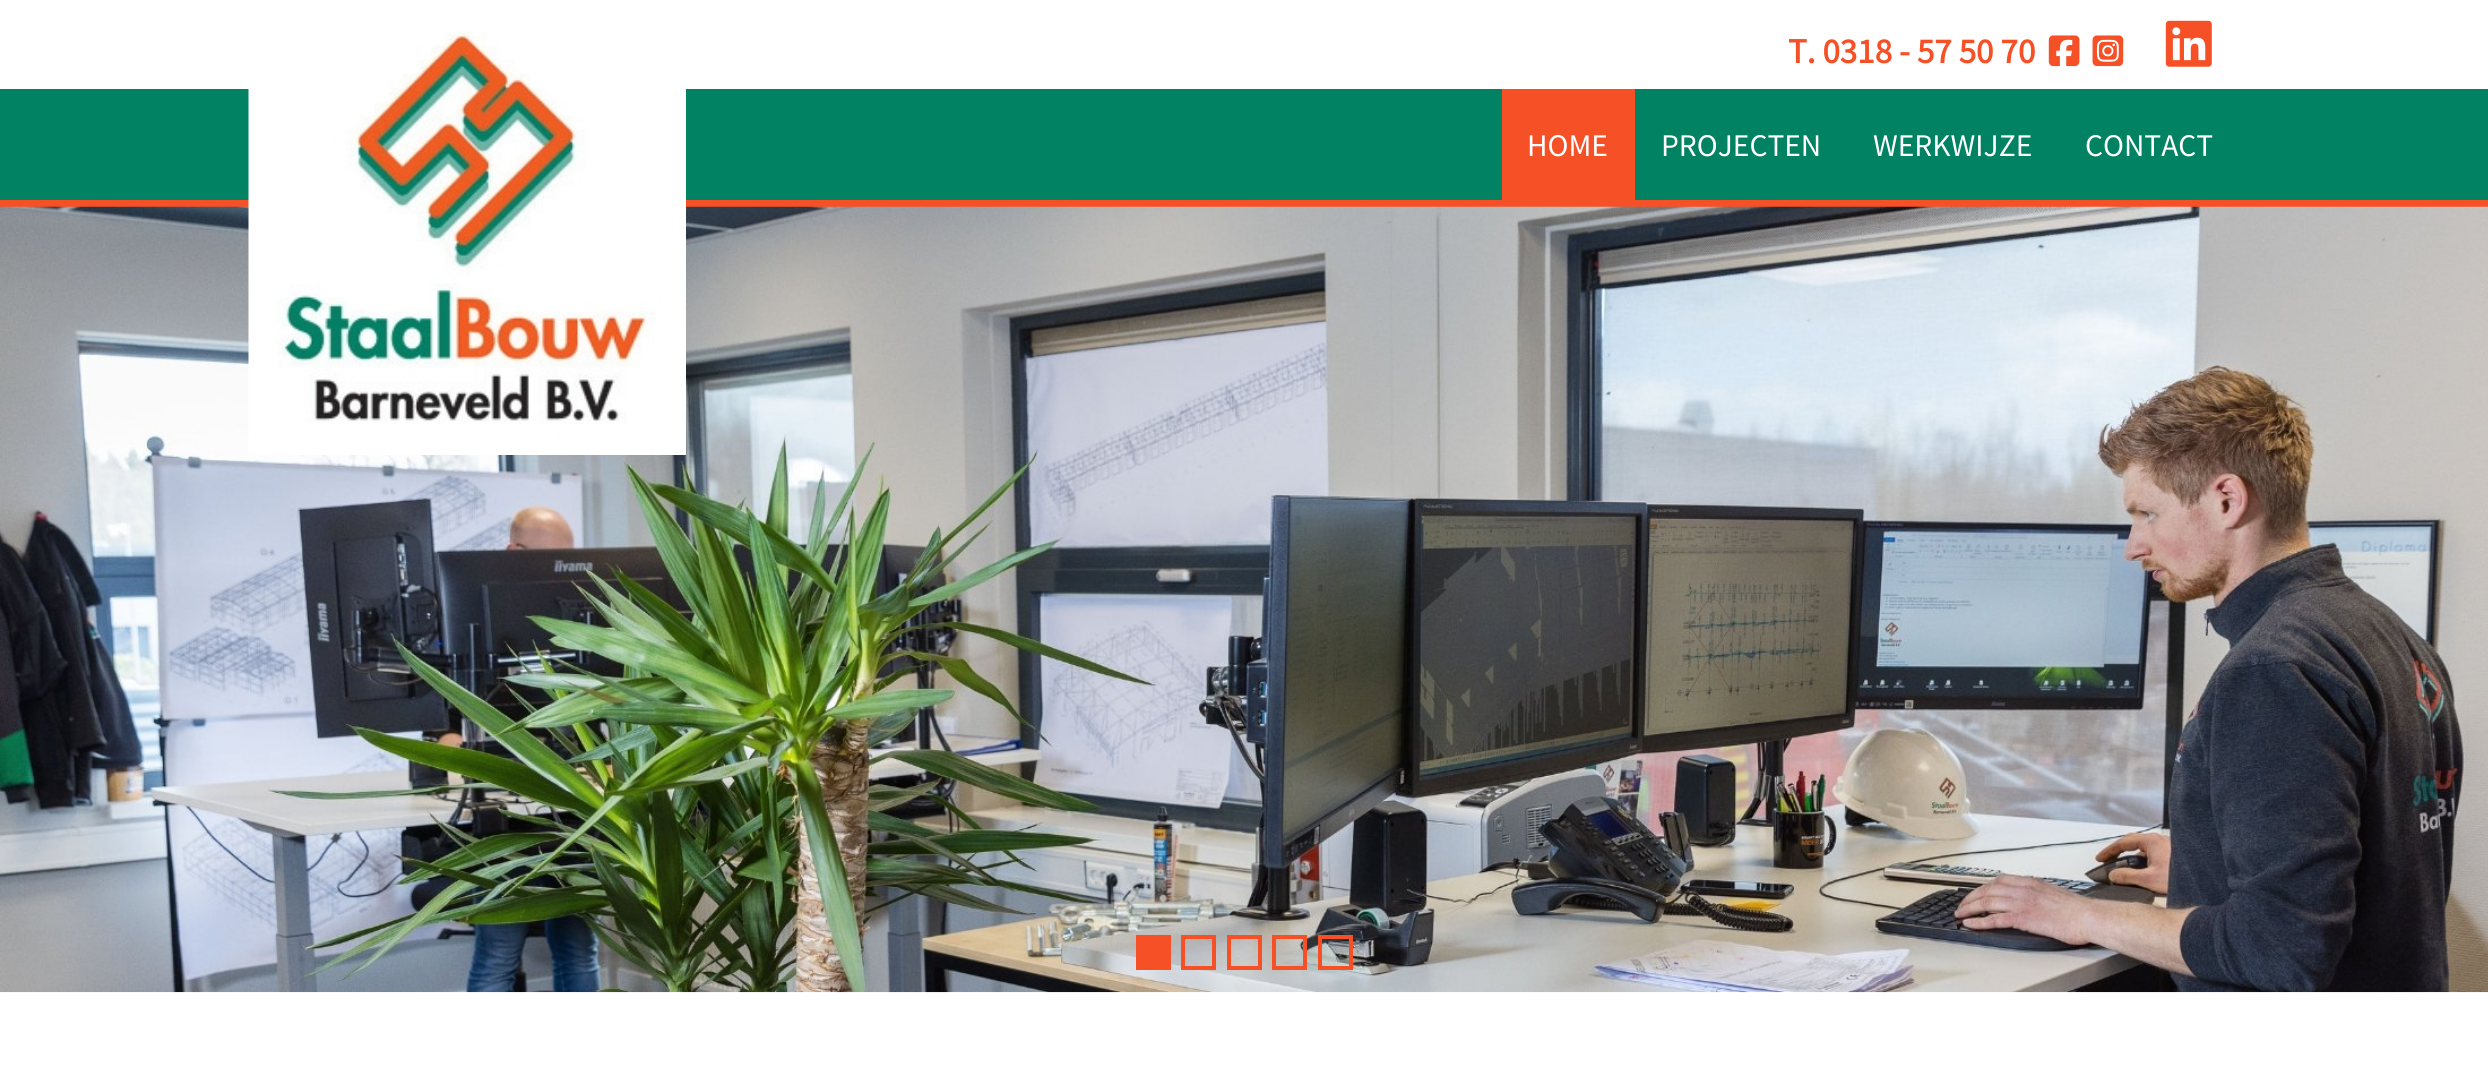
import math
import cairocffi as cairo

surface = cairo.ImageSurface(cairo.FORMAT_RGB24, 2488, 1077)
ctx = cairo.Context(surface)
options = cairo.FontOptions()
options.set_hint_metrics(cairo.HINT_METRICS_OFF)
options.set_hint_style(cairo.HINT_STYLE_NONE)
ctx.set_font_options(options)
ctx.set_miter_limit(4)


def rgb(r, g, b):
    ctx.set_source_rgb(r / 255, g / 255, b / 255)


def face(family, size, italic, bold):
    ctx.select_font_face(family, cairo.FONT_SLANT_ITALIC if italic else cairo.FONT_SLANT_NORMAL, cairo.FONT_WEIGHT_BOLD if bold else cairo.FONT_WEIGHT_NORMAL)
    ctx.set_font_size(size)


def label(x, y, s):
    ctx.move_to(x, y)
    ctx.show_text(s)


def rect(x, y, w, h):
    ctx.rectangle(x, y, w, h)
    ctx.fill()


def image(path, x, y, w, h):
    ctx.save()
    ctx.set_source_surface(cairo.ImageSurface.create_from_png(path), x, y)
    ctx.rectangle(x, y, w, h)
    ctx.fill()
    ctx.restore()


rgb(255, 255, 255)
ctx.paint()
rgb(0, 130, 99)
rect(0, 89, 2488, 111)
rgb(246, 80, 39)
rect(0, 200, 2488, 7)
image('image4.png', 0, 206, 2488, 787)
image('image0.png', 248, 31, 438, 424)
face('Source Sans Pro', 35, 0, 1)
label(1788, 63, 'T. 0318 - 57 50 70')
image('image1.png', 2048, 35, 32, 32)
image('image2.png', 2092, 35, 32, 32)
image('image3.png', 2165, 20, 47, 47)
rect(1502, 89, 133, 111)
face('Source Sans Pro', 31.5, 0, 0)
rgb(255, 255, 255)
label(1527, 156, 'HOME')
label(1661, 156, 'PROJECTEN')
label(1873, 156, 'WERKWIJZE')
label(2085, 156, 'CONTACT')
rgb(246, 80, 39)
rect(1136, 935, 35, 35)
ctx.rectangle(1183, 937, 31, 31)
ctx.set_line_width(4)
ctx.stroke()
ctx.rectangle(1229, 937, 31, 31)
ctx.stroke()
ctx.rectangle(1274, 937, 31, 31)
ctx.stroke()
ctx.rectangle(1320, 937, 31, 31)
ctx.stroke()
surface.write_to_png('render.png')
